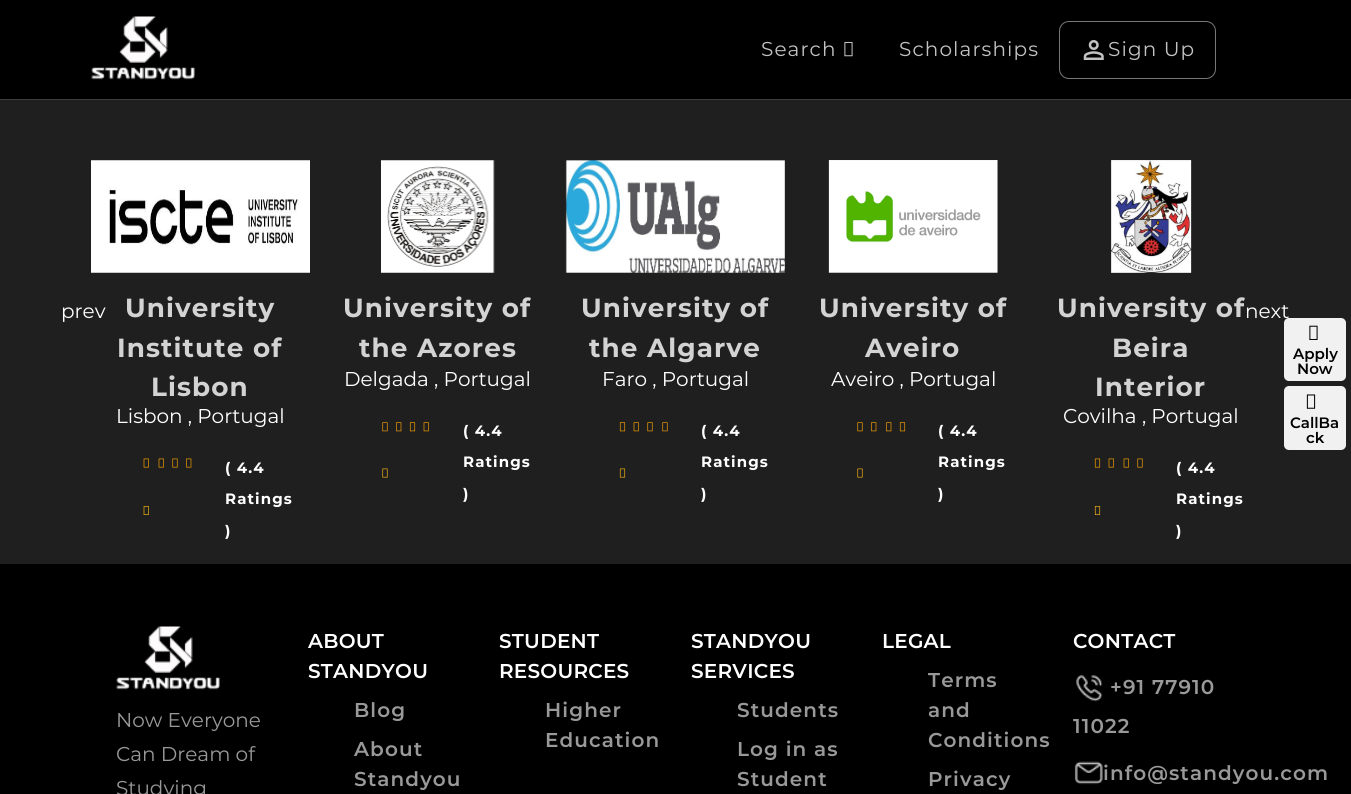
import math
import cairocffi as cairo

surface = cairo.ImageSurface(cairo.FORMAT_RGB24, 1351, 794)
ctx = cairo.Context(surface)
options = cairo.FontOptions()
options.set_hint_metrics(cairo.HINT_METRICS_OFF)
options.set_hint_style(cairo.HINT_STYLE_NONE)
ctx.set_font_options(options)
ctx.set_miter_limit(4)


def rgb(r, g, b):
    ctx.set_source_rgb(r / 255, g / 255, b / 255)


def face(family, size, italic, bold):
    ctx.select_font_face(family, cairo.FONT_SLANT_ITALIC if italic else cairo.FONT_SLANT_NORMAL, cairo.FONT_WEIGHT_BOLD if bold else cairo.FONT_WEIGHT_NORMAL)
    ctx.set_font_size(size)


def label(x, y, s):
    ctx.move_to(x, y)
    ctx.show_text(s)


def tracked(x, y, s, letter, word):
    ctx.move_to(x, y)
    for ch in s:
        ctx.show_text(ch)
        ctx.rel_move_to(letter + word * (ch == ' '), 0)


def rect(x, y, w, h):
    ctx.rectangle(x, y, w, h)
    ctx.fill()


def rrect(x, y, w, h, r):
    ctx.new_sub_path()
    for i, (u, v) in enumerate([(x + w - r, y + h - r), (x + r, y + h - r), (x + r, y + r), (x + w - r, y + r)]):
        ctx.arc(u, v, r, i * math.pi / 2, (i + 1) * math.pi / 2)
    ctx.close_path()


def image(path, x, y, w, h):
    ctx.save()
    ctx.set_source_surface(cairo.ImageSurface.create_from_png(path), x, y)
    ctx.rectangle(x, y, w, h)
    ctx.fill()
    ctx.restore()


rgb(31, 31, 31)
ctx.paint()
rgb(0, 0, 0)
rect(0, 0, 1351, 99)
rgb(61, 61, 61)
rect(0, 99, 1351, 1)
image('image0.png', 91, 16, 104, 64)
face('Montserrat', 20, 0, 0)
rgb(194, 194, 194)
tracked(761, 56, 'Search', 1.1, 0)
image('image1.png', 844, 41, 9, 16)
tracked(899, 56, 'Scholarships', 1.1, 0)
rrect(1059.5, 21.5, 156, 57, 9.5)
rgb(120, 120, 120)
ctx.set_line_width(1)
ctx.stroke()
image('image2.png', 1083, 40, 21, 20)
rgb(194, 194, 194)
tracked(1108, 56, 'Sign Up', 1.1, 0)
image('image3.png', 91, 160, 219, 113)
face('Montserrat', 26.25, 0, 1)
rgb(211, 211, 211)
tracked(125, 317, 'University', 1.1, 0)
tracked(117, 357, 'Institute of', 1.1, 0)
tracked(151, 396, 'Lisbon', 1.1, 0)
face('Montserrat', 20, 0, 0)
rgb(255, 255, 255)
label(116, 423, 'Lisbon , Portugal')
image('image4.png', 143, 458, 6, 10)
image('image4.png', 158, 458, 6, 10)
image('image5.png', 172, 458, 6, 10)
image('image6.png', 186, 458, 6, 10)
image('image7.png', 143, 506, 6, 9)
face('Montserrat', 15, 0, 1)
tracked(225, 473, '( 4.4', 1.1, 0)
tracked(225, 504, 'Ratings', 1.1, 0)
tracked(225, 536, ')', 1.1, 0)
image('image8.png', 381, 160, 114, 113)
face('Montserrat', 26.25, 0, 1)
rgb(211, 211, 211)
tracked(343, 317, 'University of', 1.1, 0)
tracked(359, 357, 'the Azores', 1.1, 0)
face('Montserrat', 20, 0, 0)
rgb(255, 255, 255)
label(344, 386, 'Delgada , Portugal')
image('image9.png', 382, 422, 6, 10)
image('image10.png', 396, 422, 6, 10)
image('image11.png', 409, 422, 7, 10)
image('image12.png', 423, 422, 6, 10)
image('image13.png', 382, 468, 6, 10)
face('Montserrat', 15, 0, 1)
tracked(463, 436, '( 4.4', 1.1, 0)
tracked(463, 467, 'Ratings', 1.1, 0)
tracked(463, 499, ')', 1.1, 0)
image('image14.png', 565, 160, 220, 113)
face('Montserrat', 26.25, 0, 1)
rgb(211, 211, 211)
tracked(581, 317, 'University of', 1.1, 0)
tracked(589, 357, 'the Algarve', 1.1, 0)
face('Montserrat', 20, 0, 0)
rgb(255, 255, 255)
label(602, 386, 'Faro , Portugal')
image('image11.png', 619, 422, 7, 10)
image('image12.png', 633, 422, 6, 10)
image('image9.png', 647, 422, 6, 10)
image('image9.png', 662, 422, 6, 10)
image('image15.png', 619, 468, 7, 10)
face('Montserrat', 15, 0, 1)
tracked(701, 436, '( 4.4', 1.1, 0)
tracked(701, 467, 'Ratings', 1.1, 0)
tracked(701, 499, ')', 1.1, 0)
image('image16.png', 828, 160, 170, 113)
face('Montserrat', 26.25, 0, 1)
rgb(211, 211, 211)
tracked(819, 317, 'University of', 1.1, 0)
tracked(865, 357, 'Aveiro', 1.1, 0)
face('Montserrat', 20, 0, 0)
rgb(255, 255, 255)
label(831, 386, 'Aveiro , Portugal')
image('image9.png', 857, 422, 6, 10)
image('image10.png', 871, 422, 6, 10)
image('image10.png', 886, 422, 6, 10)
image('image11.png', 899, 422, 7, 10)
image('image13.png', 857, 468, 6, 10)
face('Montserrat', 15, 0, 1)
tracked(938, 436, '( 4.4', 1.1, 0)
tracked(938, 467, 'Ratings', 1.1, 0)
tracked(938, 499, ')', 1.1, 0)
image('image17.png', 1111, 160, 81, 113)
face('Montserrat', 26.25, 0, 1)
rgb(211, 211, 211)
tracked(1057, 317, 'University of', 1.1, 0)
tracked(1112, 357, 'Beira', 1.1, 0)
tracked(1095, 396, 'Interior', 1.1, 0)
face('Montserrat', 20, 0, 0)
rgb(255, 255, 255)
label(1063, 423, 'Covilha , Portugal')
image('image18.png', 1094, 458, 7, 10)
image('image4.png', 1108, 458, 6, 10)
image('image4.png', 1123, 458, 6, 10)
image('image5.png', 1137, 458, 6, 10)
image('image19.png', 1094, 506, 7, 9)
face('Montserrat', 15, 0, 1)
tracked(1176, 473, '( 4.4', 1.1, 0)
tracked(1176, 504, 'Ratings', 1.1, 0)
tracked(1176, 536, ')', 1.1, 0)
face('Montserrat', 20, 0, 0)
label(61, 318, 'prev')
rgb(241, 241, 241)
rrect(1284, 318, 62, 63, 5)
ctx.fill()
rgb(255, 255, 255)
label(1245, 318, 'next')
image('image20.png', 1309, 325, 9, 15)
face('Montserrat SemiBold', 15, 0, 0)
rgb(0, 0, 0)
label(1293, 359, 'Apply')
label(1297, 374, 'Now')
rgb(241, 241, 241)
rrect(1284, 386, 62, 64, 5)
ctx.fill()
image('image21.png', 1306, 394, 10, 15)
rgb(0, 0, 0)
label(1290, 428, 'CallBa')
label(1306, 443, 'ck')
rect(0, 564, 1351, 230)
image('image22.png', 116, 626, 104, 64)
face('Montserrat', 20, 0, 0)
rgb(153, 153, 153)
label(116, 727, 'Now Everyone')
label(116, 761, 'Can Dream of')
label(116, 795, 'Studying')
face('Montserrat SemiBold', 20, 0, 0)
rgb(255, 255, 255)
tracked(308, 648, 'ABOUT', 0.25, 0)
tracked(308, 678, 'STANDYOU', 0.25, 0)
rgb(153, 153, 153)
tracked(354, 717, 'Blog', 1.1, 0)
tracked(354, 756, 'About', 1.1, 0)
tracked(354, 786, 'Standyou', 1.1, 0)
rgb(255, 255, 255)
tracked(499, 648, 'STUDENT', 0.25, 0)
tracked(499, 678, 'RESOURCES', 0.25, 0)
rgb(153, 153, 153)
tracked(545, 717, 'Higher', 1.1, 0)
tracked(545, 747, 'Education', 1.1, 0)
rgb(255, 255, 255)
tracked(691, 648, 'STANDYOU', 0.25, 0)
tracked(691, 678, 'SERVICES', 0.25, 0)
rgb(153, 153, 153)
tracked(737, 717, 'Students', 1.1, 0)
tracked(737, 756, 'Log in as', 1.1, 0)
tracked(737, 786, 'Student', 1.1, 0)
rgb(255, 255, 255)
tracked(882, 648, 'LEGAL', 0.25, 0)
rgb(153, 153, 153)
tracked(928, 687, 'Terms', 1.1, 0)
tracked(928, 717, 'and', 1.1, 0)
tracked(928, 747, 'Conditions', 1.1, 0)
tracked(928, 786, 'Privacy', 1.1, 0)
rgb(255, 255, 255)
tracked(1073, 648, 'CONTACT', 0.25, 0)
image('image23.png', 1076, 675, 27, 27)
rgb(153, 153, 153)
tracked(1110, 694, '+91 77910', 1.1, 0)
tracked(1073, 733, '11022', 1.1, 0)
image('image24.png', 1074, 761, 29, 24)
tracked(1103, 780, 'info@standyou.com', 1.1, 0)
surface.write_to_png('render.png')
